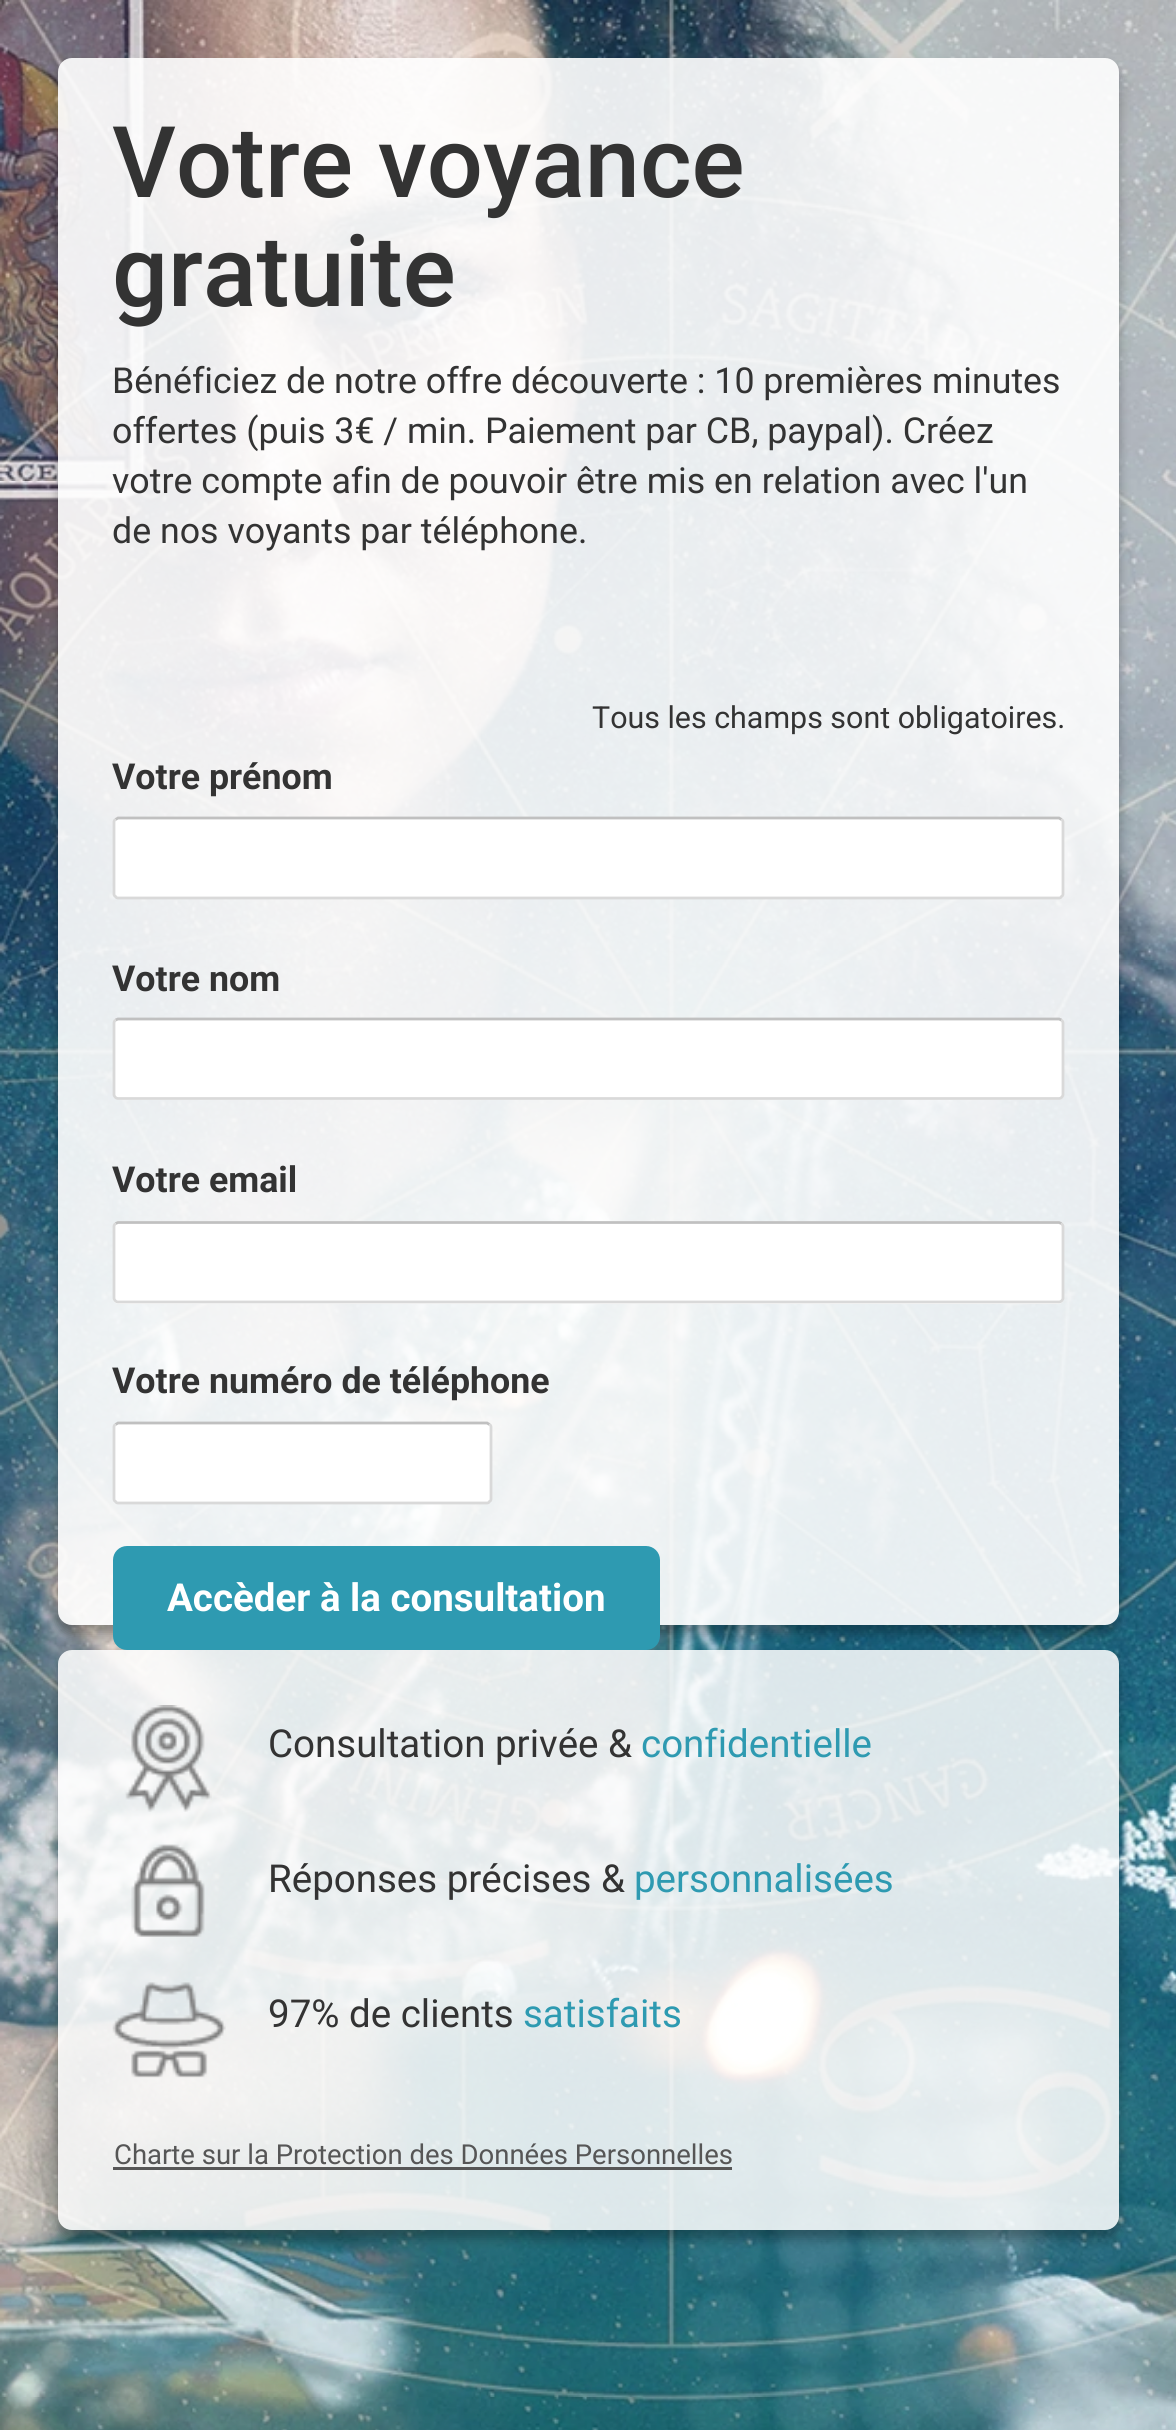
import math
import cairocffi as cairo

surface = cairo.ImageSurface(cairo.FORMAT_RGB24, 1176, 2430)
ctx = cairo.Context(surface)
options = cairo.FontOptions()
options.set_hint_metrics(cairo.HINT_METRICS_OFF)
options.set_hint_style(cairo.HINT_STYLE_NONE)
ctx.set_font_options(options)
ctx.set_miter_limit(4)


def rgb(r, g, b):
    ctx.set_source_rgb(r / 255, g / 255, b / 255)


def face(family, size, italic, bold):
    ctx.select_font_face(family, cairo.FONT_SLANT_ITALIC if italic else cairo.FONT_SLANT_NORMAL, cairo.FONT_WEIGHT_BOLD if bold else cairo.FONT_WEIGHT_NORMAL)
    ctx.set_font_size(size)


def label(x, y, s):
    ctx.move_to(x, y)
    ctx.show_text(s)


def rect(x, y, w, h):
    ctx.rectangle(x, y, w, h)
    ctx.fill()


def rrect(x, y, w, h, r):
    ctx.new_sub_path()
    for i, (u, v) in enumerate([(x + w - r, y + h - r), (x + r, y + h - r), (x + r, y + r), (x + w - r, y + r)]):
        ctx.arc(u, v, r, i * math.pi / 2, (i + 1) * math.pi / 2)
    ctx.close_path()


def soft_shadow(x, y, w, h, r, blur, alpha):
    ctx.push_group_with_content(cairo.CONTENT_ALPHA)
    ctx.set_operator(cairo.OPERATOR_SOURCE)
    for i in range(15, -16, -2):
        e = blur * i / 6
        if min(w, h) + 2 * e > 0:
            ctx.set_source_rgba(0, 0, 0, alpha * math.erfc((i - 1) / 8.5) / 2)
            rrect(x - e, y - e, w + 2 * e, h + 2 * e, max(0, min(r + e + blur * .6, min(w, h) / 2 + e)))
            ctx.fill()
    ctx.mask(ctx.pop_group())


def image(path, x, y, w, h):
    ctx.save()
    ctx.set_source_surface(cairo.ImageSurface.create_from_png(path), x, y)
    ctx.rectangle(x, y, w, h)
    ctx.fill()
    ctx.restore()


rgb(255, 255, 255)
ctx.paint()
image('image0.png', 0, 0, 1176, 2430)
ctx.save()
ctx.set_fill_rule(cairo.FILL_RULE_EVEN_ODD)
ctx.new_path()
ctx.move_to(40, 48)
ctx.line_to(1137, 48)
ctx.line_to(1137, 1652)
ctx.line_to(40, 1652)
ctx.close_path()
ctx.move_to(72, 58)
ctx.line_to(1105, 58)
ctx.curve_to(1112.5, 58, 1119, 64.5, 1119, 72)
ctx.line_to(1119, 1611)
ctx.curve_to(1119, 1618.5, 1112.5, 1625, 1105, 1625)
ctx.line_to(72, 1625)
ctx.curve_to(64.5, 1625, 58, 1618.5, 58, 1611)
ctx.line_to(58, 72)
ctx.curve_to(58, 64.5, 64.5, 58, 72, 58)
ctx.close_path()
ctx.clip()
rgb(0, 0, 0)
soft_shadow(58, 66, 1061, 1568, 14, 5.5, 0.3)
ctx.restore()
ctx.set_source_rgba(1, 1, 1, 0.9)
rrect(58, 58, 1061, 1567, 14)
ctx.fill()
face('Roboto Medium', 99, 0, 0)
rgb(51, 51, 51)
label(112, 197, 'Votre voyance')
label(112, 306, 'gratuite')
face('Roboto', 35.75, 0, 0)
label(112, 393, 'Bénéficiez de notre offre découverte : 10 premières minutes')
label(112, 443, 'offertes (puis 3€ / min. Paiement par CB, paypal). Créez')
label(112, 493, 'votre compte afin de pouvoir être mis en relation avec l\'un')
label(112, 543, 'de nos voyants par téléphone.')
face('Roboto', 30.4, 0, 0)
label(592, 728, 'Tous les champs sont obligatoires.')
face('Roboto', 35.75, 0, 1)
label(112, 789, 'Votre prénom')
rgb(255, 255, 255)
rrect(113, 817, 951, 82, 6)
ctx.fill()
ctx.new_path()
ctx.move_to(115.5, 819.5)
ctx.line_to(118, 818)
ctx.line_to(1059, 818)
ctx.line_to(1061.5, 819.5)
rgb(192, 192, 192)
ctx.set_line_width(2.8)
ctx.stroke()
ctx.new_path()
ctx.move_to(1061.5, 819.5)
ctx.curve_to(1062.5, 820, 1063, 821, 1063, 822)
ctx.line_to(1063, 894)
ctx.curve_to(1063, 895, 1062.5, 896, 1061.5, 896.5)
ctx.curve_to(1061, 897.5, 1060, 898, 1059, 898)
ctx.line_to(118, 898)
ctx.curve_to(117, 898, 116, 897.5, 115.5, 896.5)
ctx.curve_to(114.5, 896, 114, 895, 114, 894)
ctx.line_to(114, 822)
ctx.curve_to(114, 821, 114.5, 820, 115.5, 819.5)
rgb(217, 217, 217)
ctx.stroke()
rgb(51, 51, 51)
label(112, 991, 'Votre nom')
rgb(255, 255, 255)
rrect(113, 1018, 951, 82, 6)
ctx.fill()
ctx.new_path()
ctx.move_to(115.5, 1020)
ctx.line_to(118, 1019)
ctx.line_to(1059, 1019)
ctx.line_to(1061.5, 1020)
rgb(192, 192, 192)
ctx.stroke()
ctx.new_path()
ctx.move_to(1061.5, 1020)
ctx.curve_to(1062.5, 1021, 1063, 1022, 1063, 1023)
ctx.line_to(1063, 1094.5)
ctx.curve_to(1063, 1095.5, 1062.5, 1096.5, 1061.5, 1097.5)
ctx.curve_to(1061, 1098, 1060, 1098.5, 1059, 1098.5)
ctx.line_to(118, 1098.5)
ctx.curve_to(117, 1098.5, 116, 1098, 115.5, 1097.5)
ctx.curve_to(114.5, 1096.5, 114, 1095.5, 114, 1094.5)
ctx.line_to(114, 1023)
ctx.curve_to(114, 1022, 114.5, 1021, 115.5, 1020)
rgb(217, 217, 217)
ctx.stroke()
rgb(51, 51, 51)
label(112, 1192, 'Votre email')
rgb(255, 255, 255)
rrect(113, 1221, 951, 83, 6)
ctx.fill()
ctx.new_path()
ctx.move_to(115.5, 1223.5)
ctx.line_to(118, 1222.5)
ctx.line_to(1059, 1222.5)
ctx.line_to(1061.5, 1223.5)
rgb(192, 192, 192)
ctx.stroke()
ctx.new_path()
ctx.move_to(1061.5, 1223.5)
ctx.curve_to(1062.5, 1224.5, 1063, 1225.5, 1063, 1226.5)
ctx.line_to(1063, 1298)
ctx.curve_to(1063, 1299, 1062.5, 1300, 1061.5, 1301)
ctx.curve_to(1061, 1301.5, 1060, 1302, 1059, 1302)
ctx.line_to(118, 1302)
ctx.curve_to(117, 1302, 116, 1301.5, 115.5, 1301)
ctx.curve_to(114.5, 1300, 114, 1299, 114, 1298)
ctx.line_to(114, 1226.5)
ctx.curve_to(114, 1225.5, 114.5, 1224.5, 115.5, 1223.5)
rgb(217, 217, 217)
ctx.stroke()
rgb(51, 51, 51)
label(112, 1393, 'Votre numéro de téléphone')
rgb(255, 255, 255)
rrect(113, 1422, 379, 82, 6)
ctx.fill()
ctx.new_path()
ctx.move_to(115.5, 1424.5)
ctx.line_to(118, 1423)
ctx.line_to(487, 1423)
ctx.line_to(489.5, 1424.5)
rgb(192, 192, 192)
ctx.stroke()
ctx.new_path()
ctx.move_to(489.5, 1424.5)
ctx.curve_to(490.5, 1425, 491, 1426, 491, 1427)
ctx.line_to(491, 1499)
ctx.curve_to(491, 1500, 490.5, 1501, 489.5, 1501.5)
ctx.curve_to(489, 1502.5, 488, 1503, 487, 1503)
ctx.line_to(118, 1503)
ctx.curve_to(117, 1503, 116, 1502.5, 115.5, 1501.5)
ctx.curve_to(114.5, 1501, 114, 1500, 114, 1499)
ctx.line_to(114, 1427)
ctx.curve_to(114, 1426, 114.5, 1425, 115.5, 1424.5)
rgb(217, 217, 217)
ctx.stroke()
ctx.save()
ctx.set_fill_rule(cairo.FILL_RULE_EVEN_ODD)
ctx.new_path()
ctx.move_to(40, 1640)
ctx.line_to(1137, 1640)
ctx.line_to(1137, 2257)
ctx.line_to(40, 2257)
ctx.close_path()
ctx.move_to(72, 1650)
ctx.line_to(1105, 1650)
ctx.curve_to(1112.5, 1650, 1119, 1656.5, 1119, 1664)
ctx.line_to(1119, 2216)
ctx.curve_to(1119, 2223.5, 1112.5, 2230, 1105, 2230)
ctx.line_to(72, 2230)
ctx.curve_to(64.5, 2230, 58, 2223.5, 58, 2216)
ctx.line_to(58, 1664)
ctx.curve_to(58, 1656.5, 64.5, 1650, 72, 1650)
ctx.close_path()
ctx.clip()
rgb(0, 0, 0)
soft_shadow(58, 1658, 1061, 581, 14, 5.5, 0.3)
ctx.restore()
rgb(46, 154, 177)
rrect(113, 1546, 547, 104, 14)
ctx.fill()
face('Roboto', 38.5, 0, 1)
rgb(255, 255, 255)
label(167, 1611, 'Accèder à la consultation')
ctx.set_source_rgba(1, 1, 1, 0.85)
rrect(58, 1650, 1061, 580, 14)
ctx.fill()
image('image1.png', 125, 1705, 87, 107)
face('Roboto', 38.5, 0, 0)
rgb(51, 51, 51)
label(268, 1757, 'Consultation privée &')
rgb(46, 154, 177)
label(641, 1757, 'confidentielle')
image('image2.png', 131, 1844, 74, 93)
rgb(51, 51, 51)
label(268, 1892, 'Réponses précises &')
rgb(46, 154, 177)
label(634, 1892, 'personnalisées')
image('image3.png', 112, 1982, 114, 96)
rgb(51, 51, 51)
label(268, 2027, '97% de clients')
rgb(46, 154, 177)
label(523, 2027, 'satisfaits')
face('Roboto', 27.5, 0, 0)
rgb(86, 86, 86)
label(114, 2164, 'Charte sur la Protection des Données Personnelles')
rect(113, 2167, 619, 3)
surface.write_to_png('render.png')
